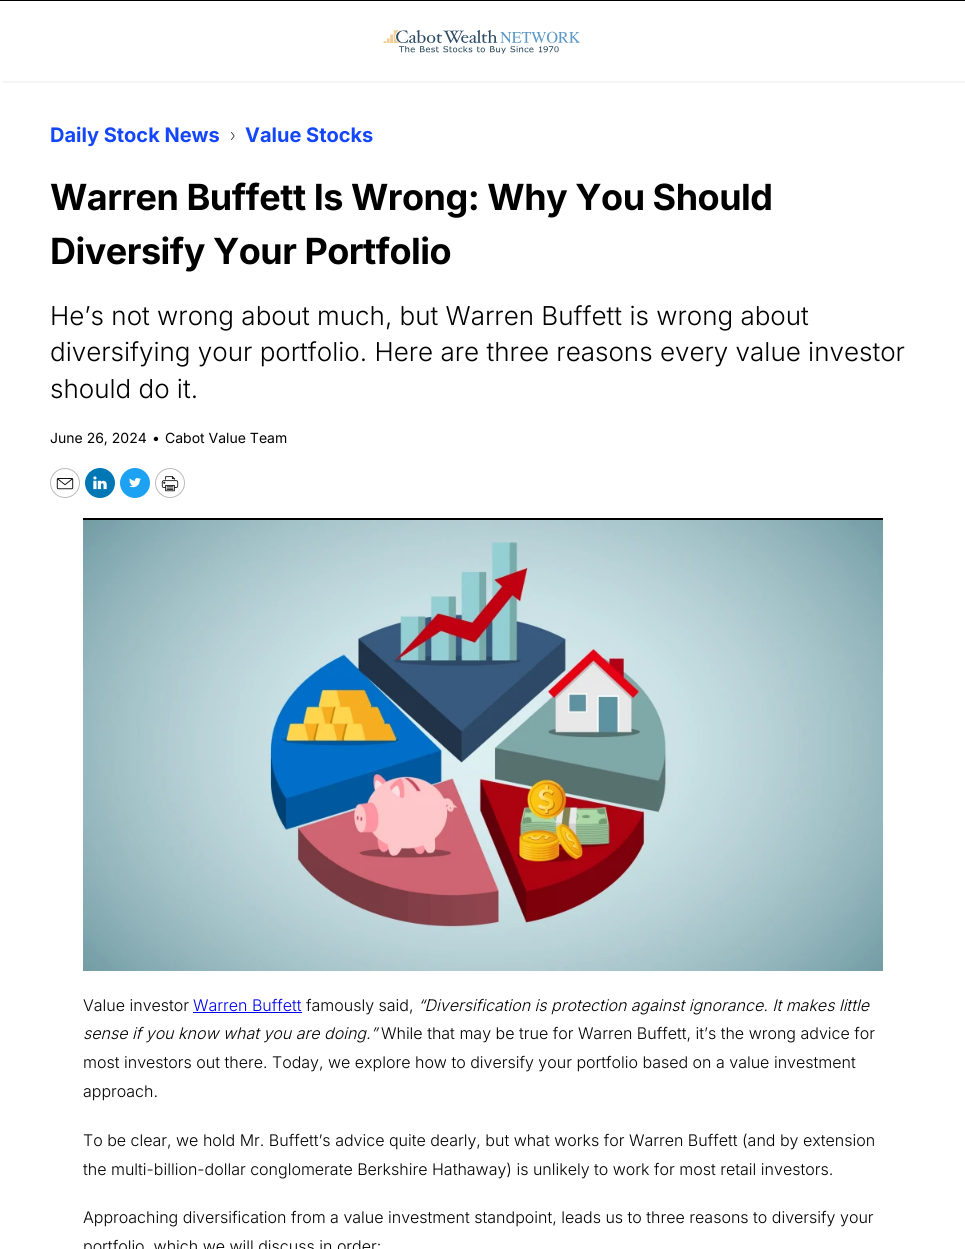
import math
import cairocffi as cairo

surface = cairo.ImageSurface(cairo.FORMAT_RGB24, 965, 1249)
ctx = cairo.Context(surface)
options = cairo.FontOptions()
options.set_hint_metrics(cairo.HINT_METRICS_OFF)
options.set_hint_style(cairo.HINT_STYLE_NONE)
ctx.set_font_options(options)
ctx.set_miter_limit(4)


def rgb(r, g, b):
    ctx.set_source_rgb(r / 255, g / 255, b / 255)


def face(family, size, italic, bold):
    ctx.select_font_face(family, cairo.FONT_SLANT_ITALIC if italic else cairo.FONT_SLANT_NORMAL, cairo.FONT_WEIGHT_BOLD if bold else cairo.FONT_WEIGHT_NORMAL)
    ctx.set_font_size(size)


def label(x, y, s):
    ctx.move_to(x, y)
    ctx.show_text(s)


def tracked(x, y, s, letter, word):
    ctx.move_to(x, y)
    for ch in s:
        ctx.show_text(ch)
        ctx.rel_move_to(letter + word * (ch == ' '), 0)


def rect(x, y, w, h):
    ctx.rectangle(x, y, w, h)
    ctx.fill()


def rrect(x, y, w, h, r):
    ctx.new_sub_path()
    for i, (u, v) in enumerate([(x + w - r, y + h - r), (x + r, y + h - r), (x + r, y + r), (x + w - r, y + r)]):
        ctx.arc(u, v, r, i * math.pi / 2, (i + 1) * math.pi / 2)
    ctx.close_path()


def soft_shadow(x, y, w, h, r, blur, alpha):
    ctx.push_group_with_content(cairo.CONTENT_ALPHA)
    ctx.set_operator(cairo.OPERATOR_SOURCE)
    for i in range(15, -16, -2):
        e = blur * i / 6
        if min(w, h) + 2 * e > 0:
            ctx.set_source_rgba(0, 0, 0, alpha * math.erfc((i - 1) / 8.5) / 2)
            rrect(x - e, y - e, w + 2 * e, h + 2 * e, max(0, min(r + e + blur * .6, min(w, h) / 2 + e)))
            ctx.fill()
    ctx.mask(ctx.pop_group())


def image(path, x, y, w, h):
    ctx.save()
    ctx.set_source_surface(cairo.ImageSurface.create_from_png(path), x, y)
    ctx.rectangle(x, y, w, h)
    ctx.fill()
    ctx.restore()


rgb(255, 255, 255)
ctx.paint()
rgb(0, 0, 0)
rect(0, 0, 965, 1)
ctx.save()
ctx.rectangle(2, 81, 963, 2)
ctx.clip()
rgb(0, 0, 0)
soft_shadow(2, 3, 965, 80, 0, 1, 0.05)
ctx.restore()
image('image0.png', 383, 30, 198, 24)
face('Inter', 20, 0, 1)
rgb(20, 71, 252)
label(50, 142, 'Daily Stock News')
image('image1.png', 231, 132, 4, 8)
label(245, 142, 'Value Stocks')
face('Inter', 36, 0, 1)
rgb(0, 0, 0)
tracked(50, 210, 'Warren Buffett Is Wrong: Why You Should', -0.5, 0)
tracked(50, 264, 'Diversify Your Portfolio', -0.5, 0)
face('Inter Light', 26, 0, 0)
label(50, 325, 'He’s not wrong about much, but Warren Buffett is wrong about')
label(50, 361, 'diversifying your portfolio. Here are three reasons every value investor')
label(50, 398, 'should do it.')
face('Inter', 14, 0, 0)
label(50, 443, 'June 26, 2024')
label(152, 443, '•')
label(165, 443, 'Cabot Value Team')
ctx.new_path()
ctx.arc(65, 483, 14.5, 0, 2 * math.pi)
rgb(187, 187, 187)
ctx.set_line_width(1)
ctx.stroke()
image('image2.png', 56, 478, 18, 12)
rgb(0, 119, 181)
ctx.arc(100, 483, 15, 0, 2 * math.pi)
ctx.fill()
image('image3.png', 93, 476, 14, 14)
image('image4.png', 120, 468, 30, 30)
ctx.arc(170, 483, 14.5, 0, 2 * math.pi)
rgb(187, 187, 187)
ctx.stroke()
image('image5.png', 161, 476, 18, 16)
rgb(0, 0, 0)
rect(83, 518, 800, 2)
image('image6.png', 83, 520, 800, 451)
face('Inter Light', 16, 0, 0)
label(83, 1011, 'Value investor')
rgb(0, 0, 238)
label(193, 1011, 'Warren Buffett')
rect(193, 1012, 109, 1)
rgb(0, 0, 0)
label(306, 1011, 'famously said,')
face('Inter Light', 16, 1, 0)
label(418, 1011, '“Diversification is protection against ignorance. It makes little')
label(83, 1039, 'sense if you know what you are doing.”')
face('Inter Light', 16, 0, 0)
label(381, 1039, 'While that may be true for Warren Buffett, it’s the wrong advice for')
label(83, 1068, 'most investors out there. Today, we explore how to diversify your portfolio based on a value investment')
label(83, 1097, 'approach.')
label(83, 1146, 'To be clear, we hold Mr. Buffett’s advice quite dearly, but what works for Warren Buffett (and by extension')
label(83, 1175, 'the multi-billion-dollar conglomerate Berkshire Hathaway) is unlikely to work for most retail investors.')
label(83, 1223, 'Approaching diversification from a value investment standpoint, leads us to three reasons to diversify your')
label(83, 1252, 'portfolio, which we will discuss in order:')
surface.write_to_png('render.png')
